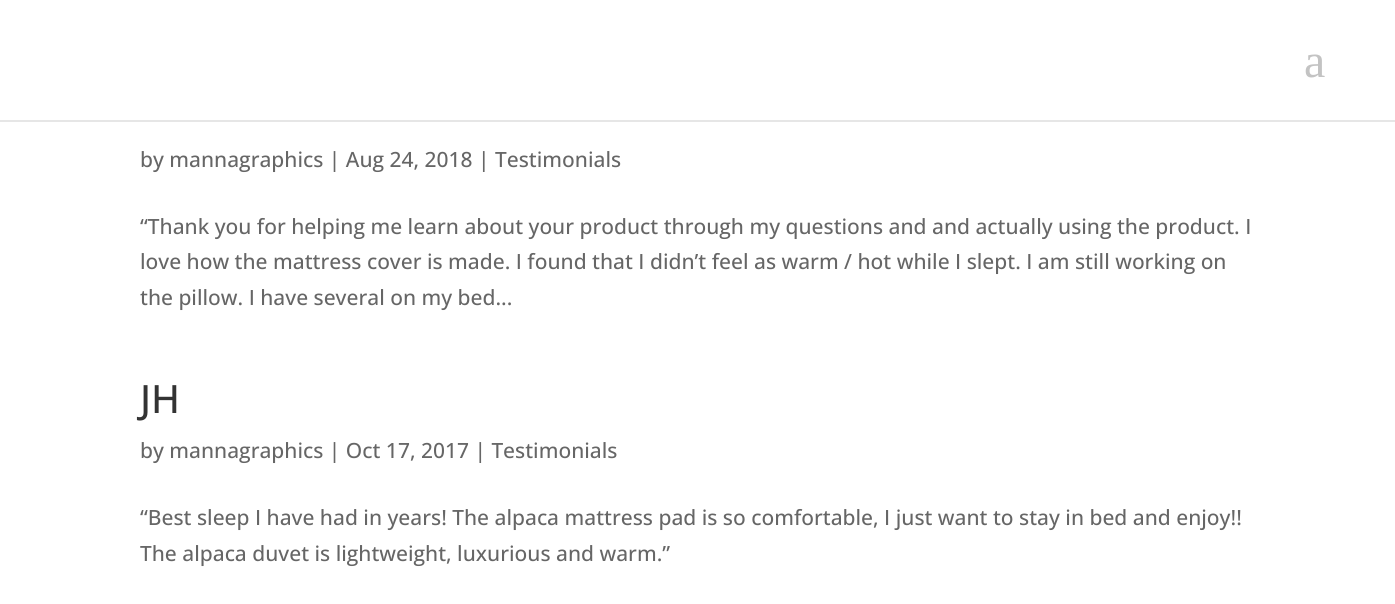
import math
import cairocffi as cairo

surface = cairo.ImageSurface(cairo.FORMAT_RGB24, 1395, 604)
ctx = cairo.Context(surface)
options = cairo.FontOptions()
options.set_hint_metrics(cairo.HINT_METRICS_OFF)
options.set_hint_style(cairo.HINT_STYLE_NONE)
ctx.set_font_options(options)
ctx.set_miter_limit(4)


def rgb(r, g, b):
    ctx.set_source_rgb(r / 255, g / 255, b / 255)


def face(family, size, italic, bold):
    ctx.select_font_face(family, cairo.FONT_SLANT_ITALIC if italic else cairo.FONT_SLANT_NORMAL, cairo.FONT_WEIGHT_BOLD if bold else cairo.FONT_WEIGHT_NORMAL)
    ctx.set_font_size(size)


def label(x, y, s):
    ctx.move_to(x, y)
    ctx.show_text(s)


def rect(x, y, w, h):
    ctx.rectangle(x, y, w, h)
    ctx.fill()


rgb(255, 255, 255)
ctx.paint()
ctx.set_source_rgba(0, 0, 0, 0.1)
rect(0, 120, 1395, 2)
face('Liberation Serif', 48, 0, 0)
rgb(195, 195, 195)
label(1304, 77, 'a')
face('Open Sans Medium', 21, 0, 0)
rgb(102, 102, 102)
label(140, 167, 'by mannagraphics | Aug 24, 2018 | Testimonials')
label(140, 234, '“Thank you for helping me learn about your product through my questions and and actually using the product. I')
label(140, 269, 'love how the mattress cover is made. I found that I didn’t feel as warm / hot while I slept. I am still working on')
label(140, 305, 'the pillow. I have several on my bed...')
face('Open Sans Medium', 39, 0, 0)
rgb(51, 51, 51)
label(140, 413, 'JH')
face('Open Sans Medium', 21, 0, 0)
rgb(102, 102, 102)
label(140, 458, 'by mannagraphics | Oct 17, 2017 | Testimonials')
label(140, 525, '“Best sleep I have had in years! The alpaca mattress pad is so comfortable, I just want to stay in bed and enjoy!!')
label(140, 561, 'The alpaca duvet is lightweight, luxurious and warm.”')
surface.write_to_png('render.png')
